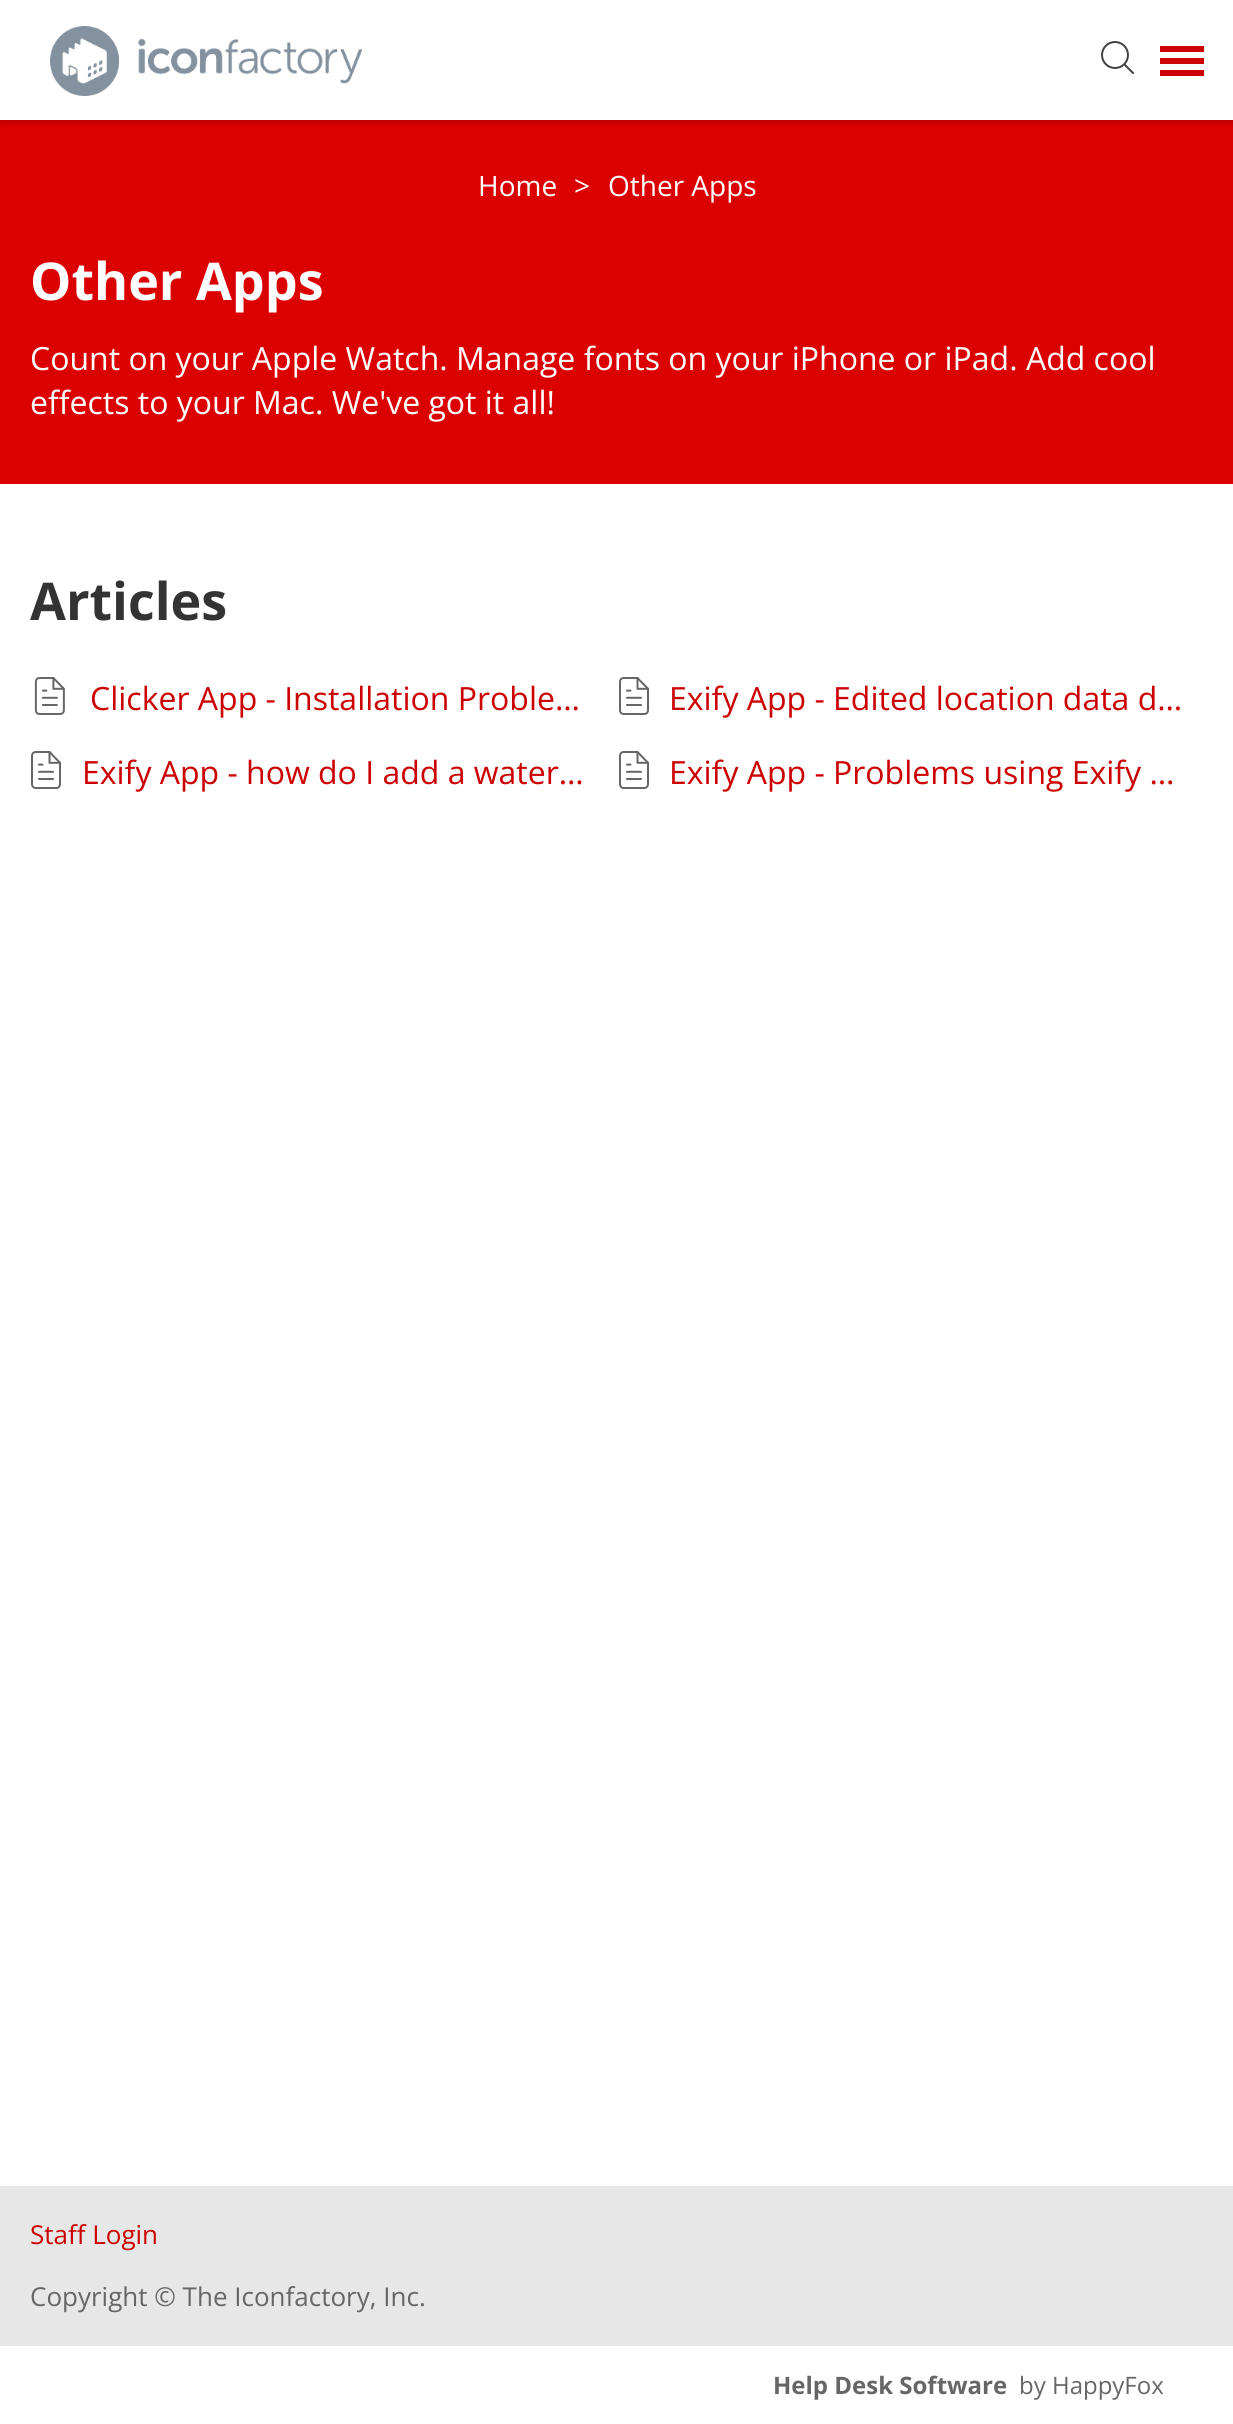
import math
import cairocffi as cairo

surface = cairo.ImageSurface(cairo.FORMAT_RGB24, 1233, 2424)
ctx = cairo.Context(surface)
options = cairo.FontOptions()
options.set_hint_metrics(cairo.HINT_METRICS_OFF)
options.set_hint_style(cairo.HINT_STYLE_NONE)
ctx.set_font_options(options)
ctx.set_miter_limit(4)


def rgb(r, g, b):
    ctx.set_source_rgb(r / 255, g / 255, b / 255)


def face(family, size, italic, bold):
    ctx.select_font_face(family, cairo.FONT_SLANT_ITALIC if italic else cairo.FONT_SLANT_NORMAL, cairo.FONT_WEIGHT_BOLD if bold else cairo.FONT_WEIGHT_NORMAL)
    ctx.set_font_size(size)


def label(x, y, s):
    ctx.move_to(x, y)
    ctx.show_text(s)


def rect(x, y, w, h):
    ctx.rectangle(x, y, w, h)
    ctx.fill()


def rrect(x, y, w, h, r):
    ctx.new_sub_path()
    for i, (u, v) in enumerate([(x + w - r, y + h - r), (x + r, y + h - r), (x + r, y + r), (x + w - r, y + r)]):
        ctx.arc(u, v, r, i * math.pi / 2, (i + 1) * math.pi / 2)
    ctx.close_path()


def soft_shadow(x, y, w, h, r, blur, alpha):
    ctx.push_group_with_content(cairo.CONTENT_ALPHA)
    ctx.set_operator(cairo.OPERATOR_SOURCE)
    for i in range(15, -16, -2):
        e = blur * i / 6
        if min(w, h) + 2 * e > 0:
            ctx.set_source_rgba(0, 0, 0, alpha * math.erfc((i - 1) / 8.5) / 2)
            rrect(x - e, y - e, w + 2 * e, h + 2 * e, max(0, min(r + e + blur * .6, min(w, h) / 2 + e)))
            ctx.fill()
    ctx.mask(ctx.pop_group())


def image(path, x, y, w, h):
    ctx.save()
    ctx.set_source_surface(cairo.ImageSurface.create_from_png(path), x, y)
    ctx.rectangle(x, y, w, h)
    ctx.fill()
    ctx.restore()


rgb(255, 255, 255)
ctx.paint()
rgb(219, 1, 1)
rect(0, 120, 1233, 364)
ctx.save()
ctx.rectangle(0, 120, 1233, 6)
ctx.clip()
rgb(0, 0, 0)
soft_shadow(0, 2, 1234, 120, 0, 3, 0.2)
ctx.restore()
image('image0.png', 50, 26, 312, 70)
ctx.arc(1115, 55, 13, 0, 2 * math.pi)
rgb(66, 66, 66)
ctx.stroke()
ctx.save()
ctx.rectangle(1100, 40, 34, 34)
ctx.clip()
ctx.new_path()
ctx.move_to(1125, 65)
ctx.line_to(1133, 73)
ctx.set_line_cap(cairo.LINE_CAP_SQUARE)
ctx.stroke()
ctx.restore()
rgb(204, 0, 0)
rect(1160, 46, 44, 6)
rect(1160, 58, 44, 6)
rect(1160, 70, 44, 6)
face('Open Sans', 28, 0, 0)
rgb(255, 255, 255)
label(478, 196, 'Home')
label(574, 196, '>')
label(608, 196, 'Other Apps')
face('Open Sans', 52, 0, 1)
label(30, 300, 'Other Apps')
face('Open Sans', 32, 0, 0)
label(30, 370, 'Count on your Apple Watch. Manage fonts on your iPhone or iPad. Add cool')
label(30, 414, 'effects to your Mac. We\'ve got it all!')
face('Open Sans', 52, 0, 1)
rgb(51, 51, 51)
label(30, 620, 'Articles')
image('image1.png', 34, 677, 31, 38)
face('Open Sans', 32, 0, 0)
rgb(204, 0, 0)
label(90, 710, 'Clicker App - Installation Proble…')
image('image2.png', 619, 677, 30, 38)
label(669, 710, 'Exify App - Edited location data d…')
image('image2.png', 31, 751, 30, 38)
label(82, 784, 'Exify App - how do I add a water…')
image('image2.png', 619, 751, 30, 38)
label(669, 784, 'Exify App - Problems using Exify …')
rgb(231, 231, 231)
rect(0, 2186, 1233, 160)
face('Open Sans', 26, 0, 0)
rgb(204, 0, 0)
label(30, 2244, 'Staff Login')
rgb(102, 102, 102)
label(30, 2306, 'Copyright © The Iconfactory, Inc.')
face('Open Sans', 24, 0, 1)
label(773, 2394, 'Help Desk Software')
face('Open Sans', 24, 0, 0)
label(1019, 2394, 'by HappyFox')
surface.write_to_png('render.png')
